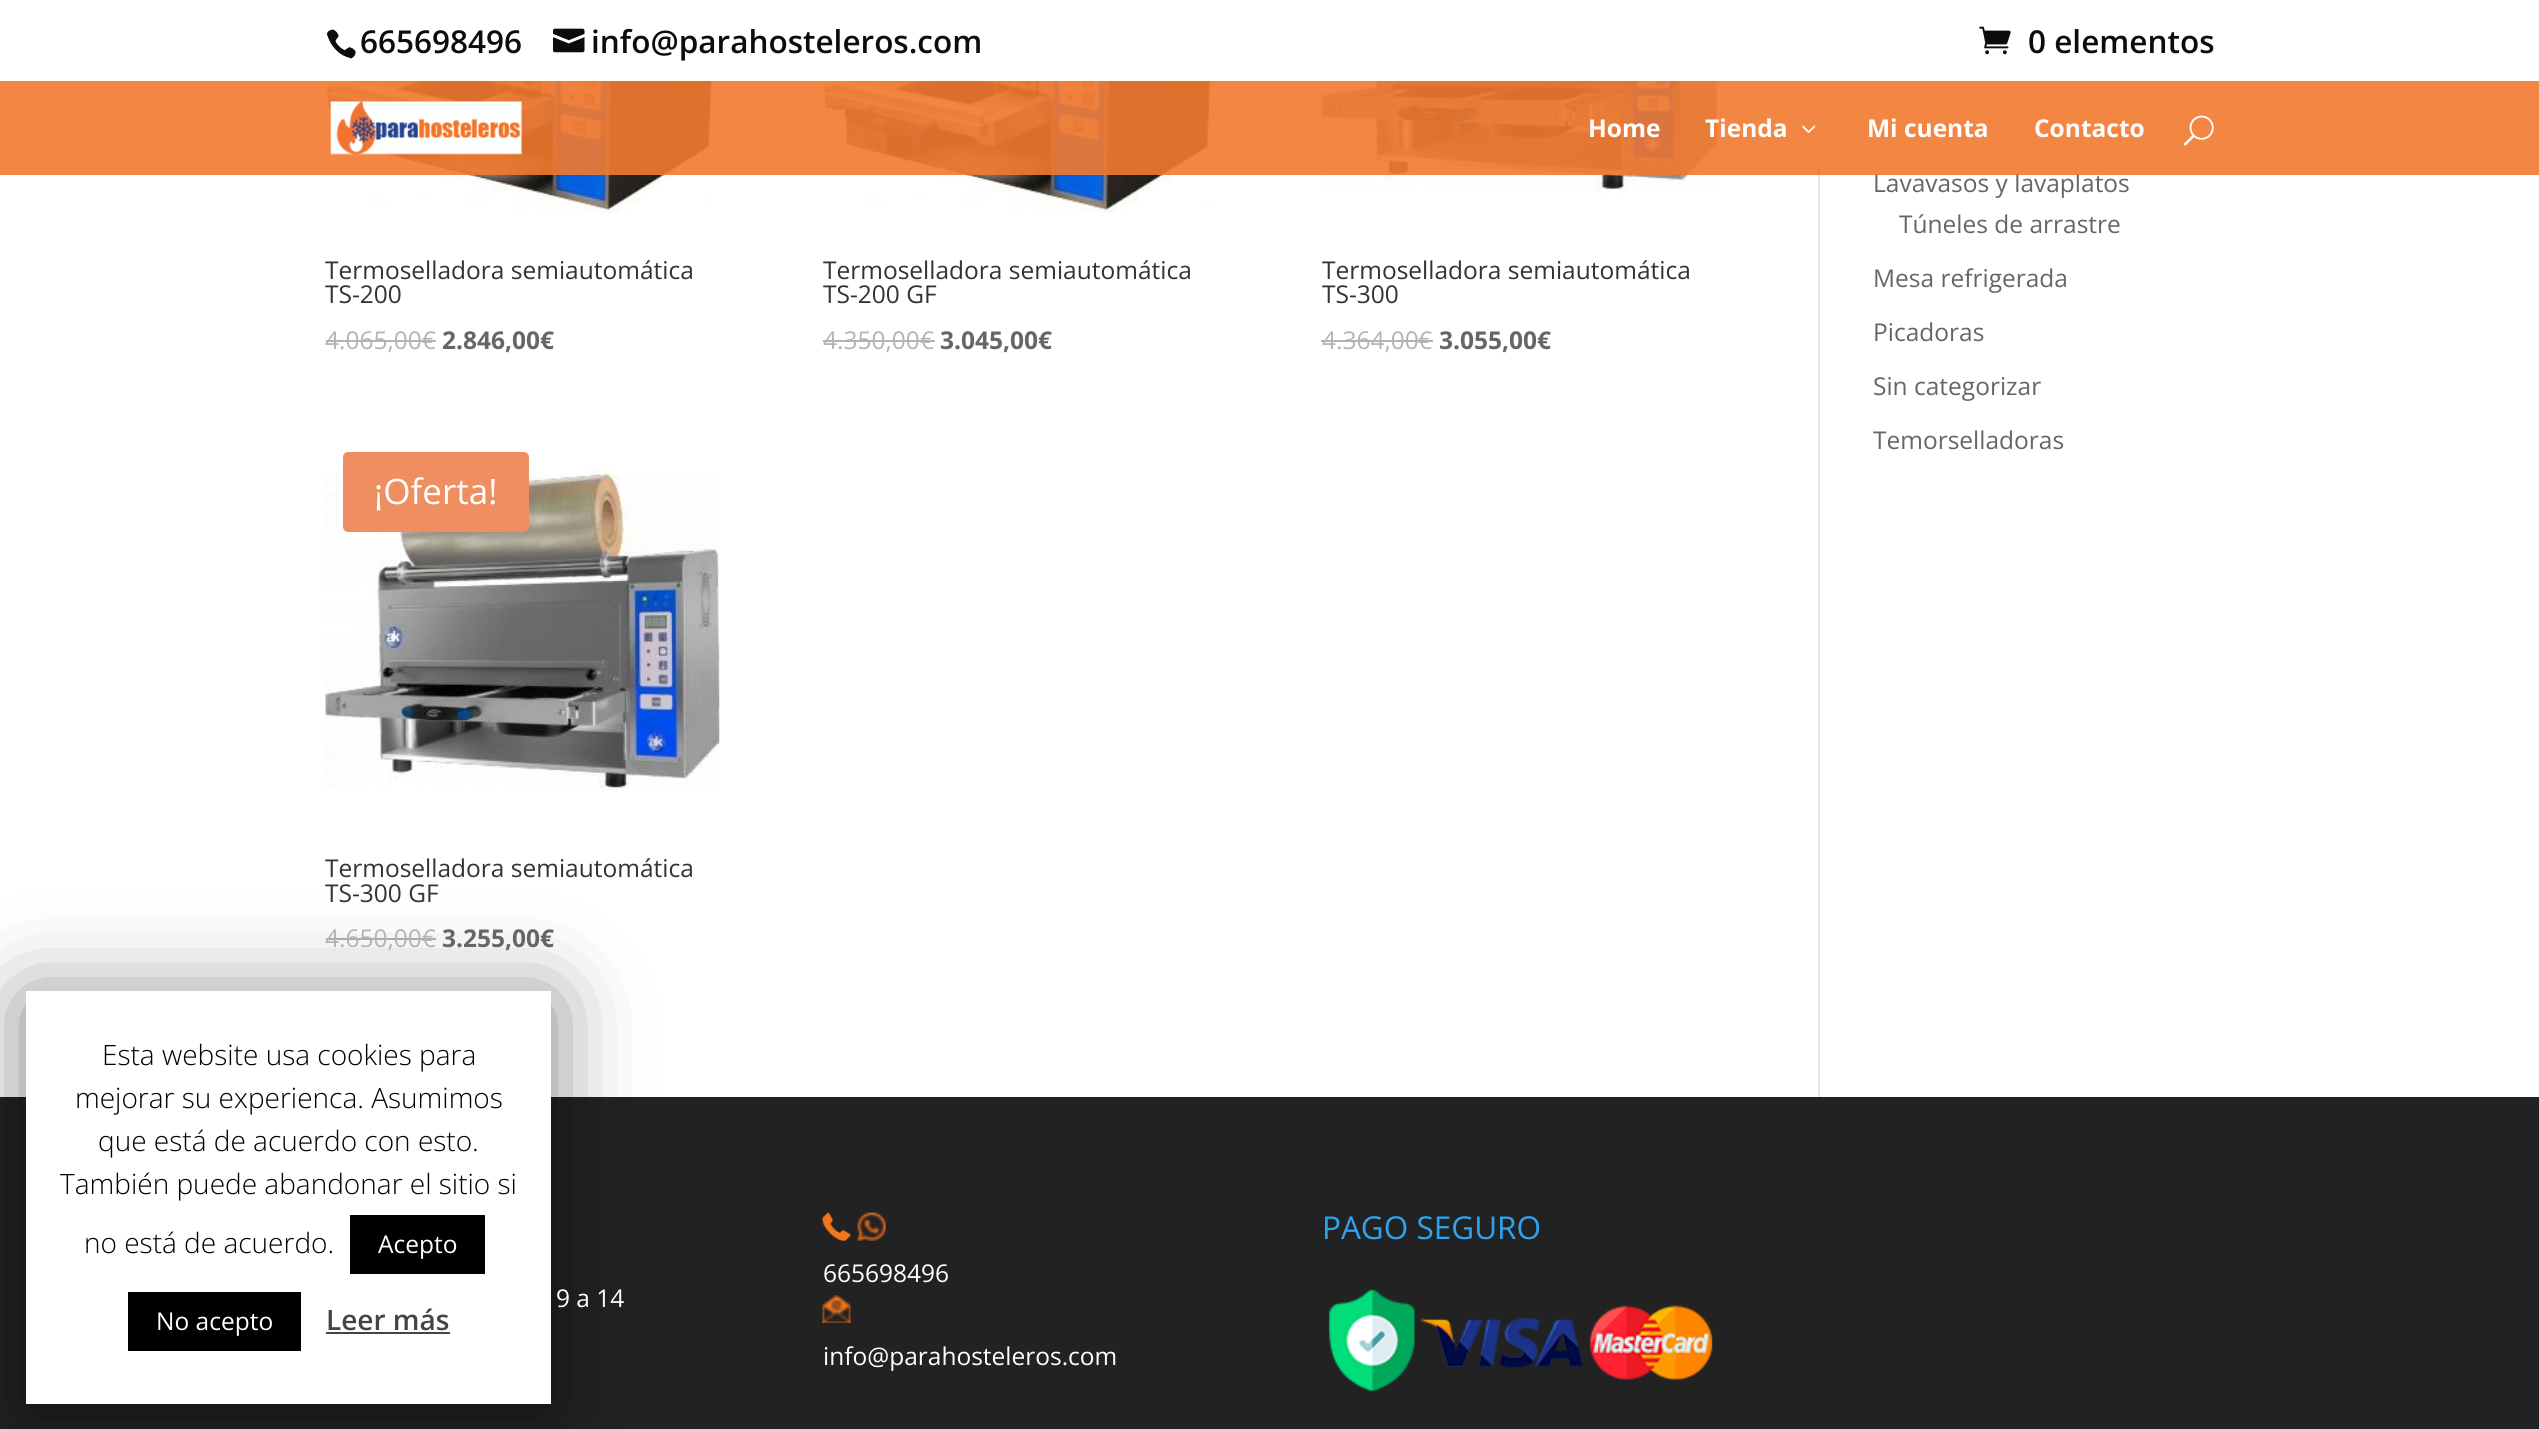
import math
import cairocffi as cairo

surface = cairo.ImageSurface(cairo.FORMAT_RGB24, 2539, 1429)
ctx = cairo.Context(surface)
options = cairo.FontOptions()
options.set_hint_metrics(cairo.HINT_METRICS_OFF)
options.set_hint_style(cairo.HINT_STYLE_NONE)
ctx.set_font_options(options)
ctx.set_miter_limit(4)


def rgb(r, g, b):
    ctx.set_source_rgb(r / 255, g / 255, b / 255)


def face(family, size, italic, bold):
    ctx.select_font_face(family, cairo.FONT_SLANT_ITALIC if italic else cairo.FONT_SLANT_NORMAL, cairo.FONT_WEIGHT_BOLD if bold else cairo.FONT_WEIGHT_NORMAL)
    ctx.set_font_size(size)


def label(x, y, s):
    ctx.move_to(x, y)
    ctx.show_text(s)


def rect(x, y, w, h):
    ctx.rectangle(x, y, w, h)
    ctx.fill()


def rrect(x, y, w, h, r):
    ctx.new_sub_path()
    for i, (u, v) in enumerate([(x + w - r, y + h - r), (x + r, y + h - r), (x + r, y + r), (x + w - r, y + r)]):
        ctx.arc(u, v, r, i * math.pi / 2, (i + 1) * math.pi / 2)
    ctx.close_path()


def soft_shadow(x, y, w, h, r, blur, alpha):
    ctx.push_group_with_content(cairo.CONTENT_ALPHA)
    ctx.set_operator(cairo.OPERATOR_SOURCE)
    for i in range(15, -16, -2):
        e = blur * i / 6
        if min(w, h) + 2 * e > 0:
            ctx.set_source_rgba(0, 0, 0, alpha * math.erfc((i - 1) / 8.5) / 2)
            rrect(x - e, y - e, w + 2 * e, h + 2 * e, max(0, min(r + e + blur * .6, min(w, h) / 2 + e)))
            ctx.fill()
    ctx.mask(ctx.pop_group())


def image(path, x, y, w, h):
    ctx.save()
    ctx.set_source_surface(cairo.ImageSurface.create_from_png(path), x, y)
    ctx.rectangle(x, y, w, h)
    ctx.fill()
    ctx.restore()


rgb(255, 255, 255)
ctx.paint()
rgb(179, 179, 179)
rect(326, 938, 110, 2)
rgb(34, 34, 34)
rect(0, 1097, 2539, 332)
rgb(0, 0, 0)
soft_shadow(26, 999, 525, 413, 0, 44, 0.5)
rgb(255, 255, 255)
rect(26, 991, 525, 413)
face('Open Sans Light', 28, 0, 0)
rgb(0, 0, 0)
label(102, 1065, 'Esta website usa cookies para')
label(75, 1108, 'mejorar su experienca. Asumimos')
label(98, 1151, 'que está de acuerdo con esto.')
label(60, 1194, 'También puede abandonar el sitio si')
label(84, 1253, 'no está de acuerdo.')
rect(350, 1215, 135, 59)
face('Open Sans', 24.5, 0, 0)
rgb(255, 255, 255)
label(378, 1253, 'Acepto')
rgb(0, 0, 0)
rect(128, 1292, 173, 59)
rgb(255, 255, 255)
label(156, 1330, 'No acepto')
face('Open Sans SemiBold', 28, 0, 0)
rgb(68, 68, 68)
label(326, 1330, 'Leer más')
rect(326, 1332, 124, 2)
image('image0.png', 326, 29, 30, 30)
face('Open Sans SemiBold', 31.5, 0, 0)
rgb(12, 12, 12)
label(360, 53, '665698496')
image('image1.png', 553, 28, 32, 25)
label(591, 53, 'info@parahosteleros.com')
image('image2.png', 1979, 26, 32, 29)
label(2028, 53, '0 elementos')
rgb(226, 226, 226)
rect(1818, 81, 2, 1016)
image('image6.png', 325, 81, 392, 133)
image('image7.png', 822, 81, 394, 133)
image('image8.png', 1321, 81, 396, 112)
face('Open Sans', 24.5, 0, 0)
rgb(102, 102, 102)
label(1873, 192, 'Lavavasos y lavaplatos')
ctx.set_source_rgba(0.949, 0.475, 0.18, 0.9)
rect(0, 81, 2539, 94)
image('image3.png', 330, 101, 192, 54)
face('Open Sans', 24.5, 0, 1)
rgb(255, 255, 255)
label(1588, 137, 'Home')
label(1705, 137, 'Tienda')
image('image4.png', 1802, 125, 14, 8)
label(1867, 137, 'Mi cuenta')
label(2034, 137, 'Contacto')
image('image5.png', 2183, 115, 31, 31)
face('Open Sans', 24.5, 0, 0)
rgb(51, 51, 51)
label(325, 279, 'Termoselladora semiautomática')
label(325, 303, 'TS-200')
rgb(179, 179, 179)
label(325, 349, '4.065,00€')
rect(326, 340, 110, 2)
face('Open Sans', 24.5, 0, 1)
rgb(102, 102, 102)
label(442, 349, '2.846,00€')
face('Open Sans', 24.5, 0, 0)
rgb(51, 51, 51)
label(823, 279, 'Termoselladora semiautomática')
label(823, 303, 'TS-200 GF')
rgb(179, 179, 179)
label(823, 349, '4.350,00')
rect(823, 340, 98, 2)
label(920, 349, '€')
rect(921, 340, 14, 2)
face('Open Sans', 24.5, 0, 1)
rgb(102, 102, 102)
label(940, 349, '3.045,00€')
face('Open Sans', 24.5, 0, 0)
rgb(51, 51, 51)
label(1322, 279, 'Termoselladora semiautomática')
label(1322, 303, 'TS-300')
rgb(179, 179, 179)
label(1322, 349, '4.364,00')
rect(1321, 340, 98, 2)
label(1418, 349, '€')
rect(1419, 340, 14, 2)
face('Open Sans', 24.5, 0, 1)
rgb(102, 102, 102)
label(1439, 349, '3.055,00€')
image('image9.png', 325, 465, 395, 326)
rgb(239, 143, 97)
rrect(343, 452, 186, 80, 5)
ctx.fill()
face('Open Sans', 35, 0, 0)
rgb(255, 255, 255)
label(374, 504, '¡Oferta!')
face('Open Sans', 24.5, 0, 0)
rgb(51, 51, 51)
label(325, 877, 'Termoselladora semiautomática')
label(325, 902, 'TS-300 GF')
rgb(179, 179, 179)
label(325, 947, '4.650,00€')
face('Open Sans', 24.5, 0, 1)
rgb(102, 102, 102)
label(442, 947, '3.255,00€')
face('Open Sans', 24.5, 0, 0)
label(1899, 233, 'Túneles de arrastre')
label(1873, 287, 'Mesa refrigerada')
label(1873, 341, 'Picadoras')
label(1873, 395, 'Sin categorizar')
label(1873, 449, 'Temorselladoras')
face('Open Sans', 31.5, 0, 0)
rgb(46, 163, 242)
label(1322, 1239, 'PAGO SEGURO')
image('image10.png', 1328, 1289, 385, 103)
face('Open Sans', 24.5, 0, 0)
rgb(255, 255, 255)
label(556, 1307, '9 a 14')
image('image11.png', 822, 1212, 29, 29)
image('image12.png', 857, 1212, 29, 29)
label(823, 1282, '665698496')
image('image13.png', 822, 1295, 29, 28)
label(823, 1365, 'info@parahosteleros.com')
surface.write_to_png('render.png')
